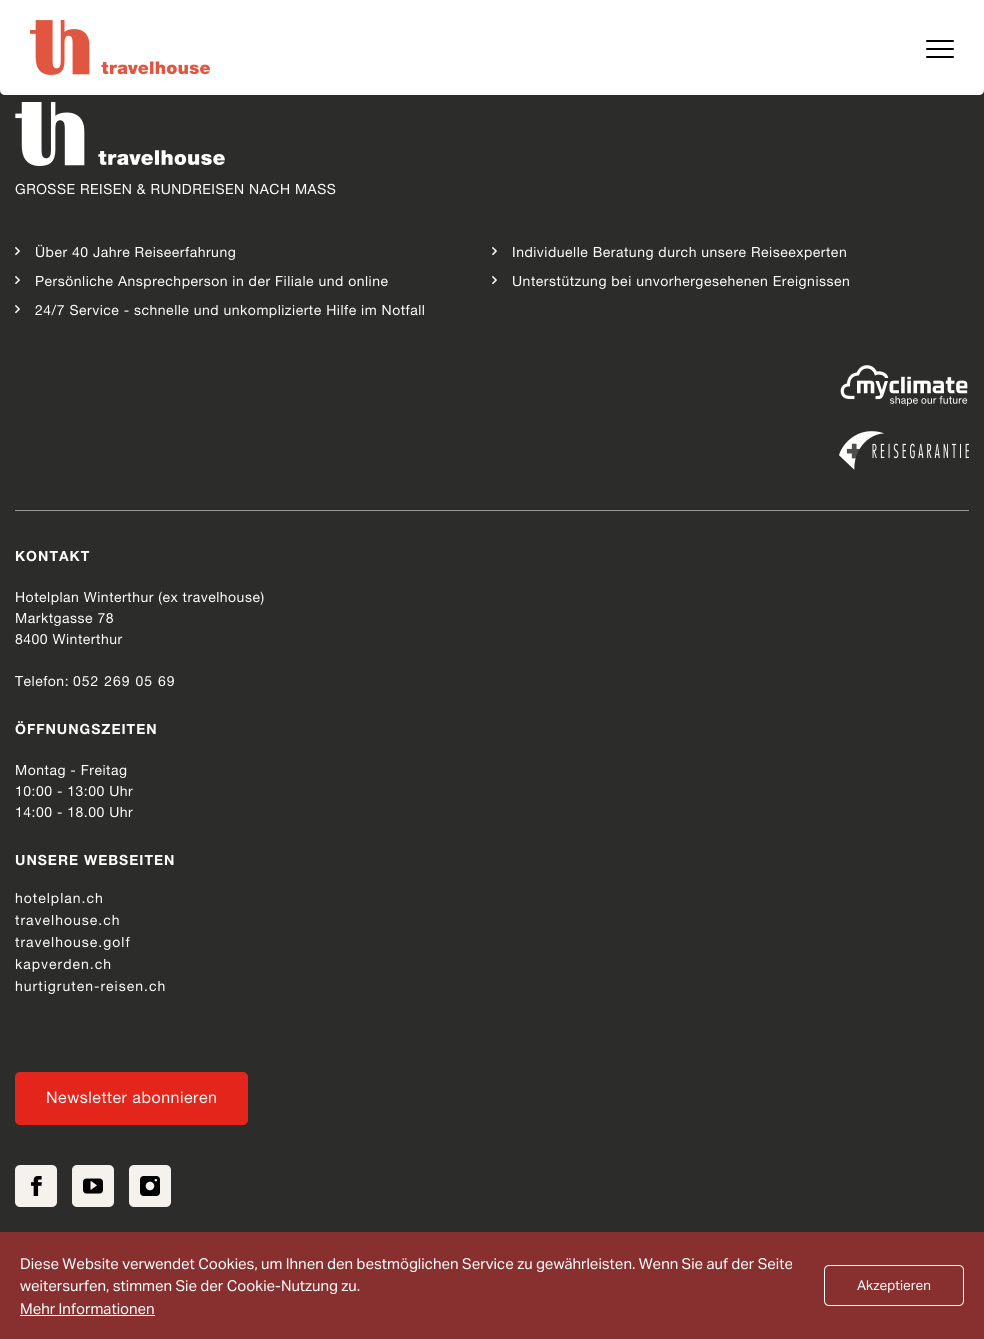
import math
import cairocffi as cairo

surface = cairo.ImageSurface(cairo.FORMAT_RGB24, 984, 1339)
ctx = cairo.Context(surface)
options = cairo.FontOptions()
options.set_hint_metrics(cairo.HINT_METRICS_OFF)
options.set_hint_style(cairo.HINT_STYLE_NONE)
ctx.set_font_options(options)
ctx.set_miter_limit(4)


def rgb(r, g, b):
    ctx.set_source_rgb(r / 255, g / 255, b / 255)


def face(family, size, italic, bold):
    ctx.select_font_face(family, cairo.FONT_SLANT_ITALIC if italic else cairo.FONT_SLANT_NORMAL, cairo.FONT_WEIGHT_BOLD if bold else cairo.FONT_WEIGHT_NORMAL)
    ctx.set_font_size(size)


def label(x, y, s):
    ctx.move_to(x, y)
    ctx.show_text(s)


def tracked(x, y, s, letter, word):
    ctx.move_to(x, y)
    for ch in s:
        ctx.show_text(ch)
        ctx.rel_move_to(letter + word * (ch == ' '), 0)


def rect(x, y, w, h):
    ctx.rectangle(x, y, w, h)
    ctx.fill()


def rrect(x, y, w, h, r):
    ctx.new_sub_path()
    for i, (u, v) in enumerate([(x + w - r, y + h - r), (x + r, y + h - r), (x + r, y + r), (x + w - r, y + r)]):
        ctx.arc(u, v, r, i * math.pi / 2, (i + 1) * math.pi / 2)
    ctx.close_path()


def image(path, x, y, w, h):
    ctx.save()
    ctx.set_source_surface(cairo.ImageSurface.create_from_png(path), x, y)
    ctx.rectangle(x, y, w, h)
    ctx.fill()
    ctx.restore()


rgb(44, 45, 42)
ctx.paint()
rgb(255, 255, 255)
ctx.new_path()
ctx.move_to(0, 0)
ctx.line_to(984, 0)
ctx.line_to(984, 90)
ctx.curve_to(984, 93, 982, 95, 979, 95)
ctx.line_to(5, 95)
ctx.curve_to(2, 95, 0, 93, 0, 90)
ctx.close_path()
ctx.fill()
image('image0.png', 30, 20, 180, 55)
rgb(0, 0, 0)
rrect(926, 40, 28, 2, 1)
ctx.fill()
rrect(926, 48, 28, 2, 1)
ctx.fill()
rrect(926, 56, 28, 2, 1)
ctx.fill()
image('image1.png', 15, 102, 210, 64)
face('Helvetica Neue', 14, 0, 0)
rgb(255, 255, 255)
tracked(15, 194, 'GROSSE REISEN & RUNDREISEN NACH MASS', 0.5, 0)
image('image2.png', 15, 247, 5, 8)
tracked(35, 257, 'Über 40 Jahre Reiseerfahrung', 0.5, 0)
image('image2.png', 492, 247, 5, 8)
tracked(512, 257, 'Individuelle Beratung durch unsere Reiseexperten', 0.5, 0)
image('image2.png', 15, 276, 5, 8)
tracked(35, 286, 'Persönliche Ansprechperson in der Filiale und online', 0.5, 0)
image('image2.png', 492, 276, 5, 8)
tracked(512, 286, 'Unterstützung bei unvorhergesehenen Ereignissen', 0.5, 0)
image('image2.png', 15, 305, 5, 8)
tracked(35, 315, '24/7 Service - schnelle und unkomplizierte Hilfe im Notfall', 0.5, 0)
image('image3.png', 840, 365, 128, 41)
image('image4.png', 839, 431, 130, 39)
rgb(153, 153, 153)
rect(15, 510, 954, 1)
face('Helvetica Neue', 14, 0, 1)
rgb(255, 255, 255)
tracked(15, 561, 'KONTAKT', 1, 0)
face('Helvetica Neue', 14, 0, 0)
tracked(15, 602, 'Hotelplan Winterthur (ex travelhouse)', 0.5, 0)
tracked(15, 623, 'Marktgasse 78', 0.5, 0)
tracked(15, 644, '8400 Winterthur', 0.5, 0)
tracked(15, 686, 'Telefon:', 0.5, 0)
tracked(73, 686, '052 269 05 69', 1, 0)
face('Helvetica Neue', 14, 0, 1)
tracked(15, 734, 'ÖFFNUNGSZEITEN', 1, 0)
face('Helvetica Neue', 14, 0, 0)
tracked(15, 775, 'Montag - Freitag', 0.5, 0)
tracked(15, 796, '10:00 - 13:00 Uhr', 0.5, 0)
tracked(15, 817, '14:00 - 18.00 Uhr', 0.5, 0)
face('Helvetica Neue', 14, 0, 1)
tracked(15, 865, 'UNSERE WEBSEITEN', 1, 0)
face('Helvetica Neue', 14, 0, 0)
tracked(15, 903, 'hotelplan.ch', 1, 0)
tracked(15, 925, 'travelhouse.ch', 1, 0)
tracked(15, 947, 'travelhouse.golf', 1, 0)
tracked(15, 969, 'kapverden.ch', 1, 0)
tracked(15, 991, 'hurtigruten-reisen.ch', 1, 0)
rgb(228, 37, 27)
rrect(15.5, 1072.5, 232, 52, 4.5)
ctx.fill_preserve()
ctx.set_line_width(1)
ctx.stroke()
face('Helvetica Neue', 16, 0, 0)
rgb(255, 255, 255)
tracked(46, 1103, 'Newsletter abonnieren', 0.5, 0)
image('image5.png', 15, 1165, 42, 42)
image('image6.png', 72, 1165, 42, 42)
image('image7.png', 129, 1165, 42, 42)
rgb(136, 48, 48)
rect(0, 1232, 984, 107)
face('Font', 15, 0, 0)
rgb(255, 255, 255)
label(20, 1269, 'Diese Website verwendet Cookies, um Ihnen den bestmöglichen Service zu gewährleisten. Wenn Sie auf der Seite')
label(20, 1291, 'weitersurfen, stimmen Sie der Cookie-Nutzung zu.')
label(20, 1314, 'Mehr Informationen')
rect(20, 1315, 135, 1)
rrect(824.5, 1265.5, 139, 40, 4.5)
ctx.stroke()
face('Font', 13.5, 0, 0)
label(857, 1290, 'Akzeptieren')
surface.write_to_png('render.png')
